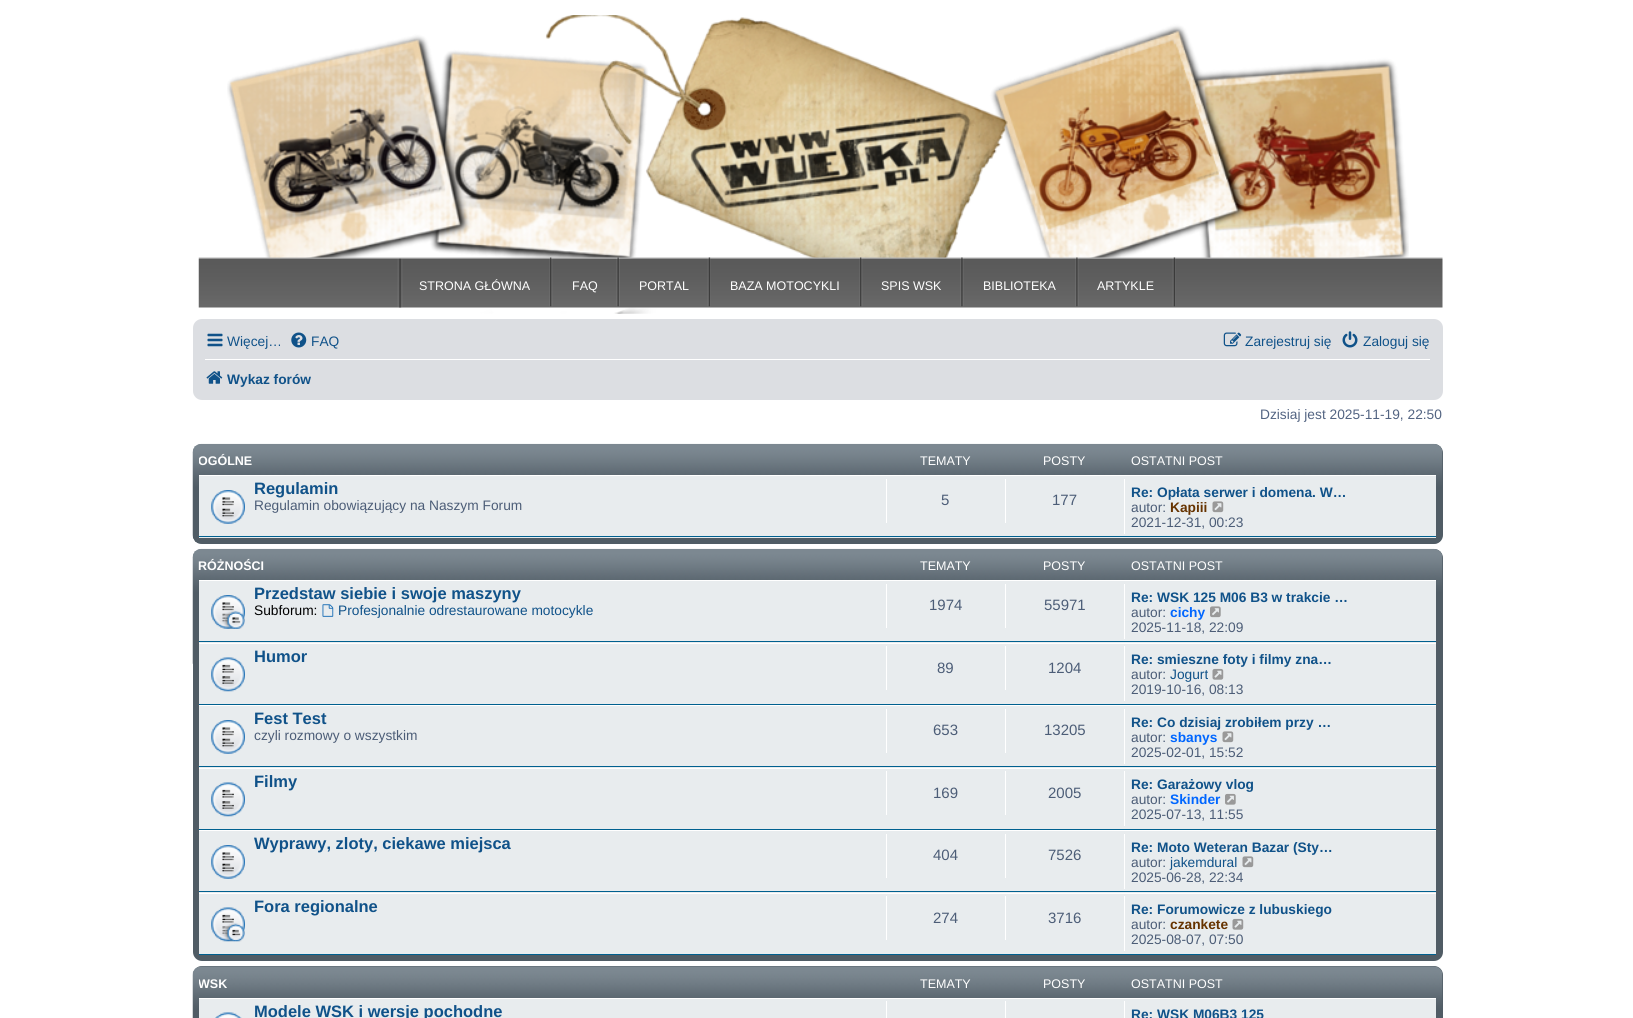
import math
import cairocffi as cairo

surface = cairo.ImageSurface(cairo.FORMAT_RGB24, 1633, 1018)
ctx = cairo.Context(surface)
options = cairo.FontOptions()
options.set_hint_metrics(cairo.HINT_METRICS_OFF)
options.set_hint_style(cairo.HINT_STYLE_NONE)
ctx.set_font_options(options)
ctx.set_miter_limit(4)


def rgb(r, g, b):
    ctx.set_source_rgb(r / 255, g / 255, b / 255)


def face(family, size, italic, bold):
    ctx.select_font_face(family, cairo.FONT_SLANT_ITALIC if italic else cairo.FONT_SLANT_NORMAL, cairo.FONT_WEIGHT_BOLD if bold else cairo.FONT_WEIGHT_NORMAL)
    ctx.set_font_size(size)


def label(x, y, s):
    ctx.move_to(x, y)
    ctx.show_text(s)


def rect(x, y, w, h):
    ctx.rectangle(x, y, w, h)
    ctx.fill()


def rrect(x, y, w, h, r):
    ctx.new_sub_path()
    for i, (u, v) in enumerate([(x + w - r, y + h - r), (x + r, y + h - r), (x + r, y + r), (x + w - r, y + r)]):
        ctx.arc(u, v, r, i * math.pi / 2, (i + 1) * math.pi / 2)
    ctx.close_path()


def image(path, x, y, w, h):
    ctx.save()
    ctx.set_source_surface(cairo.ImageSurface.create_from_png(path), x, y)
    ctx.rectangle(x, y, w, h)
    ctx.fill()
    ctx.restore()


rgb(255, 255, 255)
ctx.paint()
image('image0.png', 227, 15, 1182, 299)
image('image1.png', 198, 257, 1245, 51)
image('image2.png', 397, 258, 6, 50)
image('image3.png', 549, 257, 4, 50)
face('Liberation Sans', 12.5, 0, 0)
rgb(255, 255, 255)
label(419, 290, 'STRONA GŁÓWNA')
image('image4.png', 616, 257, 4, 50)
label(572, 290, 'FAQ')
image('image5.png', 707, 257, 4, 50)
label(639, 290, 'PORTAL')
image('image6.png', 859, 257, 4, 50)
label(730, 290, 'BAZA MOTOCYKLI')
image('image7.png', 960, 257, 4, 50)
label(881, 290, 'SPIS WSK')
image('image8.png', 1075, 257, 4, 50)
label(983, 290, 'BIBLIOTEKA')
image('image5.png', 1172, 257, 4, 50)
label(1097, 290, 'ARTYKLE')
rgb(220, 222, 226)
rrect(193, 319, 1250, 81, 9)
ctx.fill()
image('image9.png', 207, 333, 16, 14)
face('Liberation Sans', 13.75, 0, 0)
rgb(16, 82, 137)
label(227, 346, 'Więcej…')
image('image10.png', 291, 332, 16, 16)
label(311, 346, 'FAQ')
image('image11.png', 1223, 332, 19, 15)
label(1245, 346, 'Zarejestruj się')
image('image12.png', 1342, 331, 16, 17)
label(1363, 346, 'Zaloguj się')
rgb(255, 255, 255)
rect(205, 359, 1225, 1)
image('image13.png', 206, 371, 17, 13)
face('Liberation Sans', 13.75, 0, 1)
rgb(16, 82, 137)
label(227, 384, 'Wykaz forów')
face('Liberation Sans', 13.75, 0, 0)
rgb(83, 100, 130)
label(1260, 419, 'Dzisiaj jest 2025-11-19, 22:50')
rgb(80, 92, 101)
rrect(193, 444, 1250, 100, 9)
ctx.fill()
image('image14.png', 192, 443, 1251, 101)
ctx.save()
ctx.rectangle(199, 450, 1237, 25)
ctx.clip()
face('Liberation Sans', 12.5, 0, 1)
rgb(255, 255, 255)
label(198, 465, 'OGÓLNE')
ctx.restore()
face('Liberation Sans', 12.5, 0, 0)
rgb(255, 255, 255)
label(920, 465, 'TEMATY')
label(1043, 465, 'POSTY')
label(1131, 465, 'OSTATNI POST')
rgb(232, 236, 238)
rect(199, 476, 1237, 62)
rgb(255, 255, 255)
rect(199, 475, 1237, 1)
rgb(0, 96, 143)
rect(199, 536, 1237, 1)
image('image15.png', 211, 490, 34, 34)
face('Liberation Sans', 16.5, 0, 1)
rgb(16, 82, 137)
label(254, 494, 'Regulamin')
face('Liberation Sans', 13.75, 0, 0)
rgb(76, 93, 119)
label(254, 510, 'Regulamin obowiązujący na Naszym Forum')
rgb(255, 255, 255)
rect(886, 479, 1, 44)
face('Liberation Sans', 15, 0, 0)
rgb(76, 93, 119)
label(941, 505, '5')
rgb(255, 255, 255)
rect(1005, 479, 1, 44)
rgb(76, 93, 119)
label(1052, 505, '177')
rgb(255, 255, 255)
rect(1124, 479, 1, 55)
face('Liberation Sans', 13.75, 0, 1)
rgb(16, 82, 137)
label(1131, 497, 'Re: Opłata serwer i domena. W…')
face('Liberation Sans', 13.75, 0, 0)
rgb(76, 93, 119)
label(1131, 512, 'autor:')
face('Liberation Sans', 13.75, 0, 1)
rgb(102, 51, 0)
label(1170, 512, 'Kapiii')
image('image16.png', 1212, 501, 12, 12)
face('Liberation Sans', 13.75, 0, 0)
rgb(76, 93, 119)
label(1131, 527, '2021-12-31, 00:23')
rgb(80, 92, 101)
rrect(193, 549, 1250, 412, 9)
ctx.fill()
image('image17.png', 192, 548, 1251, 116)
face('Liberation Sans', 12.5, 0, 1)
rgb(255, 255, 255)
label(198, 570, 'RÓŻNOŚCI')
face('Liberation Sans', 12.5, 0, 0)
label(920, 570, 'TEMATY')
label(1043, 570, 'POSTY')
label(1131, 570, 'OSTATNI POST')
rgb(232, 236, 238)
rect(199, 581, 1237, 62)
rgb(255, 255, 255)
rect(199, 580, 1237, 1)
rgb(0, 96, 143)
rect(199, 641, 1237, 1)
image('image18.png', 211, 595, 34, 34)
face('Liberation Sans', 16.5, 0, 1)
rgb(16, 82, 137)
label(254, 599, 'Przedstaw siebie i swoje maszyny')
face('Liberation Sans', 13.75, 0, 0)
rgb(0, 0, 0)
label(254, 615, 'Subforum:')
image('image19.png', 322, 604, 12, 13)
rgb(16, 82, 137)
label(338, 615, 'Profesjonalnie odrestaurowane motocykle')
rgb(255, 255, 255)
rect(886, 584, 1, 44)
face('Liberation Sans', 15, 0, 0)
rgb(76, 93, 119)
label(929, 610, '1974')
rgb(255, 255, 255)
rect(1005, 584, 1, 44)
rgb(76, 93, 119)
label(1044, 610, '55971')
rgb(255, 255, 255)
rect(1124, 584, 1, 55)
face('Liberation Sans', 13.75, 0, 1)
rgb(16, 82, 137)
label(1131, 602, 'Re: WSK 125 M06 B3 w trakcie …')
face('Liberation Sans', 13.75, 0, 0)
rgb(76, 93, 119)
label(1131, 617, 'autor:')
face('Liberation Sans', 13.75, 0, 1)
rgb(0, 102, 255)
label(1170, 617, 'cichy')
image('image20.png', 1210, 606, 11, 12)
face('Liberation Sans', 13.75, 0, 0)
rgb(76, 93, 119)
label(1131, 632, '2025-11-18, 22:09')
rgb(232, 236, 238)
rect(199, 644, 1237, 60)
rgb(255, 255, 255)
rect(199, 643, 1237, 1)
rgb(0, 96, 143)
rect(199, 704, 1237, 1)
image('image21.png', 211, 657, 34, 35)
face('Liberation Sans', 16.5, 0, 1)
rgb(16, 82, 137)
label(254, 662, 'Humor')
rgb(255, 255, 255)
rect(886, 646, 1, 44)
face('Liberation Sans', 15, 0, 0)
rgb(76, 93, 119)
label(937, 673, '89')
rgb(255, 255, 255)
rect(1005, 646, 1, 44)
rgb(76, 93, 119)
label(1048, 673, '1204')
rgb(255, 255, 255)
rect(1124, 646, 1, 55)
face('Liberation Sans', 13.75, 0, 1)
rgb(16, 82, 137)
label(1131, 664, 'Re: smieszne foty i filmy zna…')
face('Liberation Sans', 13.75, 0, 0)
rgb(76, 93, 119)
label(1131, 679, 'autor:')
rgb(16, 82, 137)
label(1170, 679, 'Jogurt')
image('image22.png', 1212, 668, 12, 12)
rgb(76, 93, 119)
label(1131, 694, '2019-10-16, 08:13')
rgb(232, 236, 238)
rect(199, 706, 1237, 62)
rgb(255, 255, 255)
rect(199, 705, 1237, 1)
rgb(0, 96, 143)
rect(199, 766, 1237, 1)
image('image15.png', 211, 720, 34, 34)
face('Liberation Sans', 16.5, 0, 1)
rgb(16, 82, 137)
label(254, 724, 'Fest Test')
face('Liberation Sans', 13.75, 0, 0)
rgb(76, 93, 119)
label(254, 740, 'czyli rozmowy o wszystkim')
rgb(255, 255, 255)
rect(886, 709, 1, 44)
face('Liberation Sans', 15, 0, 0)
rgb(76, 93, 119)
label(933, 735, '653')
rgb(255, 255, 255)
rect(1005, 709, 1, 44)
rgb(76, 93, 119)
label(1044, 735, '13205')
rgb(255, 255, 255)
rect(1124, 709, 1, 55)
face('Liberation Sans', 13.75, 0, 1)
rgb(16, 82, 137)
label(1131, 727, 'Re: Co dzisiaj zrobiłem przy …')
face('Liberation Sans', 13.75, 0, 0)
rgb(76, 93, 119)
label(1131, 742, 'autor:')
face('Liberation Sans', 13.75, 0, 1)
rgb(0, 102, 255)
label(1170, 742, 'sbanys')
image('image16.png', 1222, 731, 12, 12)
face('Liberation Sans', 13.75, 0, 0)
rgb(76, 93, 119)
label(1131, 757, '2025-02-01, 15:52')
rgb(232, 236, 238)
rect(199, 769, 1237, 60)
rgb(255, 255, 255)
rect(199, 768, 1237, 1)
rgb(0, 96, 143)
rect(199, 829, 1237, 1)
image('image21.png', 211, 782, 34, 35)
face('Liberation Sans', 16.5, 0, 1)
rgb(16, 82, 137)
label(254, 787, 'Filmy')
rgb(255, 255, 255)
rect(886, 771, 1, 44)
face('Liberation Sans', 15, 0, 0)
rgb(76, 93, 119)
label(933, 798, '169')
rgb(255, 255, 255)
rect(1005, 771, 1, 44)
rgb(76, 93, 119)
label(1048, 798, '2005')
rgb(255, 255, 255)
rect(1124, 771, 1, 55)
face('Liberation Sans', 13.75, 0, 1)
rgb(16, 82, 137)
label(1131, 789, 'Re: Garażowy vlog')
face('Liberation Sans', 13.75, 0, 0)
rgb(76, 93, 119)
label(1131, 804, 'autor:')
face('Liberation Sans', 13.75, 0, 1)
rgb(0, 102, 255)
label(1170, 804, 'Skinder')
image('image23.png', 1225, 793, 11, 12)
face('Liberation Sans', 13.75, 0, 0)
rgb(76, 93, 119)
label(1131, 819, '2025-07-13, 11:55')
rgb(232, 236, 238)
rect(199, 831, 1237, 62)
rgb(255, 255, 255)
rect(199, 830, 1237, 1)
rgb(0, 96, 143)
rect(199, 891, 1237, 1)
image('image15.png', 211, 845, 34, 34)
face('Liberation Sans', 16.5, 0, 1)
rgb(16, 82, 137)
label(254, 849, 'Wyprawy, zloty, ciekawe miejsca')
rgb(255, 255, 255)
rect(886, 834, 1, 44)
face('Liberation Sans', 15, 0, 0)
rgb(76, 93, 119)
label(933, 860, '404')
rgb(255, 255, 255)
rect(1005, 834, 1, 44)
rgb(76, 93, 119)
label(1048, 860, '7526')
rgb(255, 255, 255)
rect(1124, 834, 1, 55)
face('Liberation Sans', 13.75, 0, 1)
rgb(16, 82, 137)
label(1131, 852, 'Re: Moto Weteran Bazar (Sty…')
face('Liberation Sans', 13.75, 0, 0)
rgb(76, 93, 119)
label(1131, 867, 'autor:')
rgb(16, 82, 137)
label(1170, 867, 'jakemdural')
image('image16.png', 1242, 856, 12, 12)
rgb(76, 93, 119)
label(1131, 882, '2025-06-28, 22:34')
rgb(232, 236, 238)
rect(199, 894, 1237, 60)
rgb(255, 255, 255)
rect(199, 893, 1237, 1)
rgb(0, 96, 143)
rect(199, 954, 1237, 1)
image('image24.png', 211, 907, 34, 35)
face('Liberation Sans', 16.5, 0, 1)
rgb(16, 82, 137)
label(254, 912, 'Fora regionalne')
rgb(255, 255, 255)
rect(886, 896, 1, 44)
face('Liberation Sans', 15, 0, 0)
rgb(76, 93, 119)
label(933, 923, '274')
rgb(255, 255, 255)
rect(1005, 896, 1, 44)
rgb(76, 93, 119)
label(1048, 923, '3716')
rgb(255, 255, 255)
rect(1124, 896, 1, 55)
face('Liberation Sans', 13.75, 0, 1)
rgb(16, 82, 137)
label(1131, 914, 'Re: Forumowicze z lubuskiego')
face('Liberation Sans', 13.75, 0, 0)
rgb(76, 93, 119)
label(1131, 929, 'autor:')
face('Liberation Sans', 13.75, 0, 1)
rgb(102, 51, 0)
label(1170, 929, 'czankete')
image('image22.png', 1232, 918, 12, 12)
face('Liberation Sans', 13.75, 0, 0)
rgb(76, 93, 119)
label(1131, 944, '2025-08-07, 07:50')
rgb(80, 92, 101)
rrect(193, 966, 1250, 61, 9)
ctx.fill()
image('image25.png', 192, 966, 1251, 52)
ctx.save()
ctx.rectangle(199, 973, 1237, 25)
ctx.clip()
face('Liberation Sans', 12.5, 0, 1)
rgb(255, 255, 255)
label(198, 988, 'WSK')
ctx.restore()
face('Liberation Sans', 12.5, 0, 0)
rgb(255, 255, 255)
label(920, 988, 'TEMATY')
label(1043, 988, 'POSTY')
label(1131, 988, 'OSTATNI POST')
rgb(232, 236, 238)
rect(199, 999, 1237, 19)
rgb(255, 255, 255)
rect(199, 998, 1237, 1)
image('image26.png', 215, 1012, 27, 6)
face('Liberation Sans', 16.5, 0, 1)
rgb(16, 82, 137)
label(254, 1017, 'Modele WSK i wersje pochodne')
rgb(255, 255, 255)
rect(886, 1001, 1, 17)
rect(1005, 1001, 1, 17)
rect(1124, 1001, 1, 17)
face('Liberation Sans', 13.75, 0, 1)
rgb(16, 82, 137)
label(1131, 1019, 'Re: WSK M06B3 125')
surface.write_to_png('render.png')
